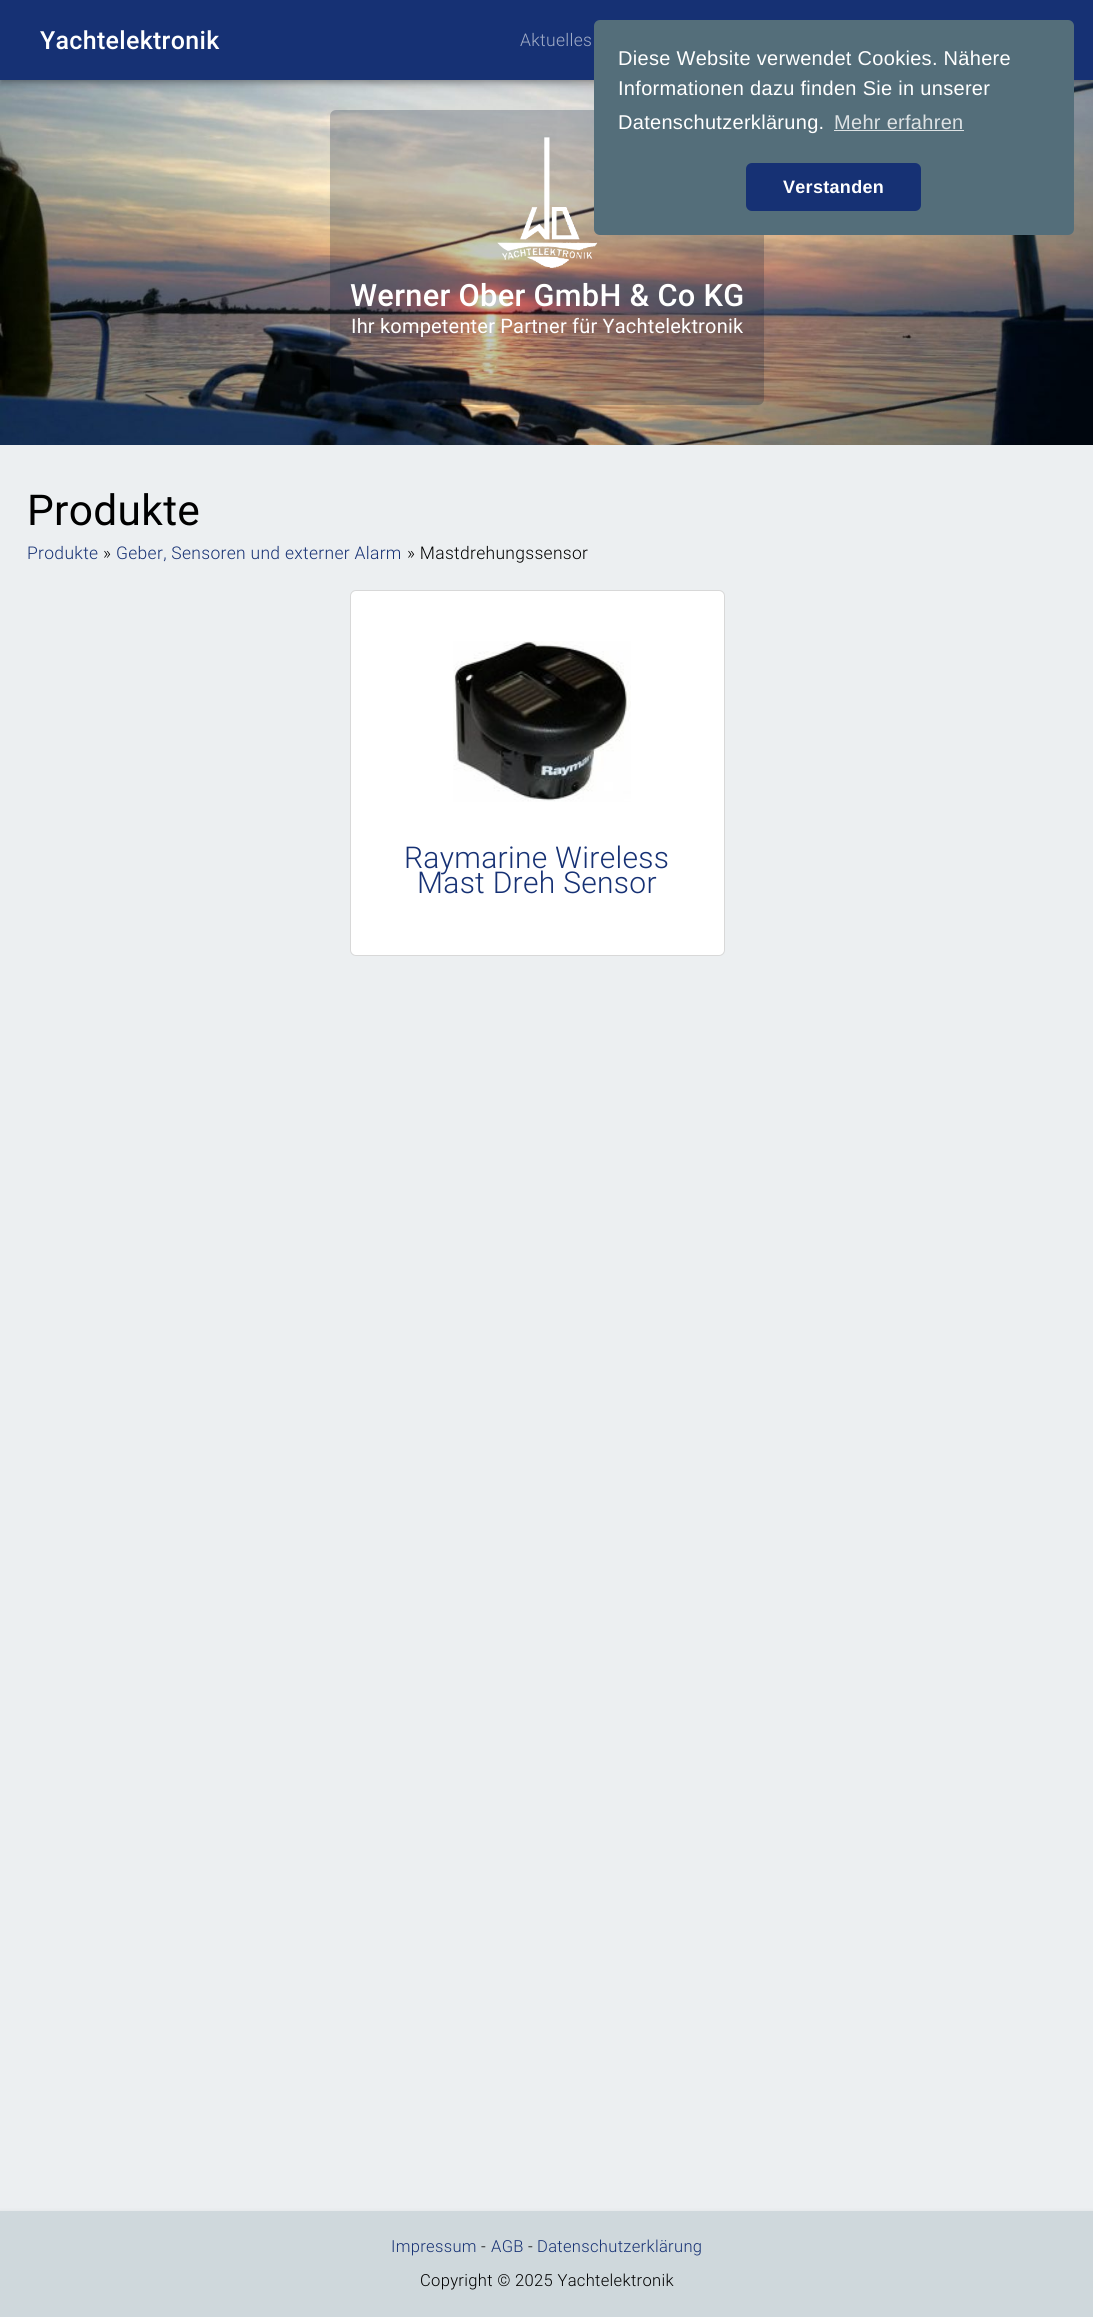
import math
import cairocffi as cairo

surface = cairo.ImageSurface(cairo.FORMAT_RGB24, 1093, 2317)
ctx = cairo.Context(surface)
options = cairo.FontOptions()
options.set_hint_metrics(cairo.HINT_METRICS_OFF)
options.set_hint_style(cairo.HINT_STYLE_NONE)
ctx.set_font_options(options)
ctx.set_miter_limit(4)


def rgb(r, g, b):
    ctx.set_source_rgb(r / 255, g / 255, b / 255)


def face(family, size, italic, bold):
    ctx.select_font_face(family, cairo.FONT_SLANT_ITALIC if italic else cairo.FONT_SLANT_NORMAL, cairo.FONT_WEIGHT_BOLD if bold else cairo.FONT_WEIGHT_NORMAL)
    ctx.set_font_size(size)


def tracked(x, y, s, letter, word):
    ctx.move_to(x, y)
    for ch in s:
        ctx.show_text(ch)
        ctx.rel_move_to(letter + word * (ch == ' '), 0)


def rect(x, y, w, h):
    ctx.rectangle(x, y, w, h)
    ctx.fill()


def rrect(x, y, w, h, r):
    ctx.new_sub_path()
    for i, (u, v) in enumerate([(x + w - r, y + h - r), (x + r, y + h - r), (x + r, y + r), (x + w - r, y + r)]):
        ctx.arc(u, v, r, i * math.pi / 2, (i + 1) * math.pi / 2)
    ctx.close_path()


def soft_shadow(x, y, w, h, r, blur, alpha):
    ctx.push_group_with_content(cairo.CONTENT_ALPHA)
    ctx.set_operator(cairo.OPERATOR_SOURCE)
    for i in range(15, -16, -2):
        e = blur * i / 6
        if min(w, h) + 2 * e > 0:
            ctx.set_source_rgba(0, 0, 0, alpha * math.erfc((i - 1) / 8.5) / 2)
            rrect(x - e, y - e, w + 2 * e, h + 2 * e, max(0, min(r + e + blur * .6, min(w, h) / 2 + e)))
            ctx.fill()
    ctx.mask(ctx.pop_group())


def image(path, x, y, w, h):
    ctx.save()
    ctx.set_source_surface(cairo.ImageSurface.create_from_png(path), x, y)
    ctx.rectangle(x, y, w, h)
    ctx.fill()
    ctx.restore()


rgb(236, 239, 241)
ctx.paint()
image('image0.png', 0, 80, 1093, 365)
rgb(0, 0, 0)
soft_shadow(0, 1, 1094, 80, 0, 6, 0.12)
soft_shadow(0, 5, 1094, 80, 0, 3, 0.14)
soft_shadow(1, 4, 1092, 77, 0, 2.5, 0.2)
rgb(22, 49, 116)
rect(0, 0, 1093, 80)
face('Roboto Medium', 25, 0, 0)
rgb(255, 255, 255)
tracked(40, 49, 'Yachtelektronik', 0.3, 0)
face('Roboto Light', 17.5, 0, 0)
rgb(162, 173, 199)
tracked(520, 46, 'Aktuelles', 0.3, 0)
ctx.set_source_rgba(0.063, 0.098, 0.2, 0.24)
rrect(330, 110, 434, 295, 6)
ctx.fill()
image('image1.png', 497, 137, 101, 131)
rgb(84, 110, 122)
rrect(594, 20, 480, 215, 6)
ctx.fill()
face('Liberation Sans', 20, 0, 0)
rgb(255, 255, 255)
tracked(618, 65, 'Diese Website verwendet Cookies. Nähere', 0.3, 0)
tracked(618, 95, 'Informationen dazu finden Sie in unserer', 0.3, 0)
tracked(618, 129, 'Datenschutzerklärung.', 0.3, 0)
rgb(221, 226, 228)
tracked(834, 129, 'Mehr erfahren', 0.3, 0)
rect(834, 130, 130, 1)
rgb(22, 49, 116)
rrect(746, 163, 175, 48, 6)
ctx.fill()
face('Liberation Sans', 18, 0, 1)
rgb(255, 255, 255)
tracked(783, 193, 'Verstanden', 0.3, 0)
face('Roboto Medium', 30.75, 0, 0)
tracked(350, 306, 'Werner Ober GmbH & Co KG', 0.3, 0)
face('Roboto', 20, 0, 0)
tracked(351, 333, 'Ihr kompetenter Partner für Yachtelektronik', 0.2, 0)
face('Roboto', 42.5, 0, 0)
rgb(0, 0, 0)
tracked(27, 525, 'Produkte', 0.3, 0)
face('Roboto Light', 17.5, 0, 0)
rgb(22, 49, 116)
tracked(27, 559, 'Produkte', 0.3, 0)
rgb(0, 0, 0)
tracked(103, 559, '»', 0.3, 0)
rgb(22, 49, 116)
tracked(116, 559, 'Geber, Sensoren und externer Alarm', 0.3, 0)
rgb(0, 0, 0)
tracked(407, 559, '» Mastdrehungssensor', 0.3, 0)
rgb(255, 255, 255)
rrect(350.5, 590.5, 374, 365, 5.5)
ctx.fill_preserve()
rgb(216, 216, 216)
ctx.set_line_width(1)
ctx.stroke()
image('image2.png', 453, 641, 178, 161)
face('Roboto Light', 30, 0, 0)
rgb(22, 49, 116)
tracked(404, 868, 'Raymarine Wireless', 0.3, 0)
tracked(417, 893, 'Mast Dreh Sensor', 0.3, 0)
rgb(0, 0, 0)
soft_shadow(0, 2213, 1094, 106, 0, 3, 0.12)
rgb(207, 216, 220)
rect(0, 2211, 1093, 106)
face('Roboto Light', 16.6, 0, 0)
rgb(22, 49, 116)
tracked(391, 2252, 'Impressum', 0.3, 0)
rgb(0, 0, 0)
tracked(481, 2252, '-', 0.3, 0)
rgb(22, 49, 116)
tracked(491, 2252, 'AGB', 0.3, 0)
rgb(0, 0, 0)
tracked(528, 2252, '-', 0.3, 0)
rgb(22, 49, 116)
tracked(537, 2252, 'Datenschutzerklärung', 0.3, 0)
rgb(0, 0, 0)
tracked(420, 2286, 'Copyright © 2025 Yachtelektronik', 0.3, 0)
surface.write_to_png('render.png')
